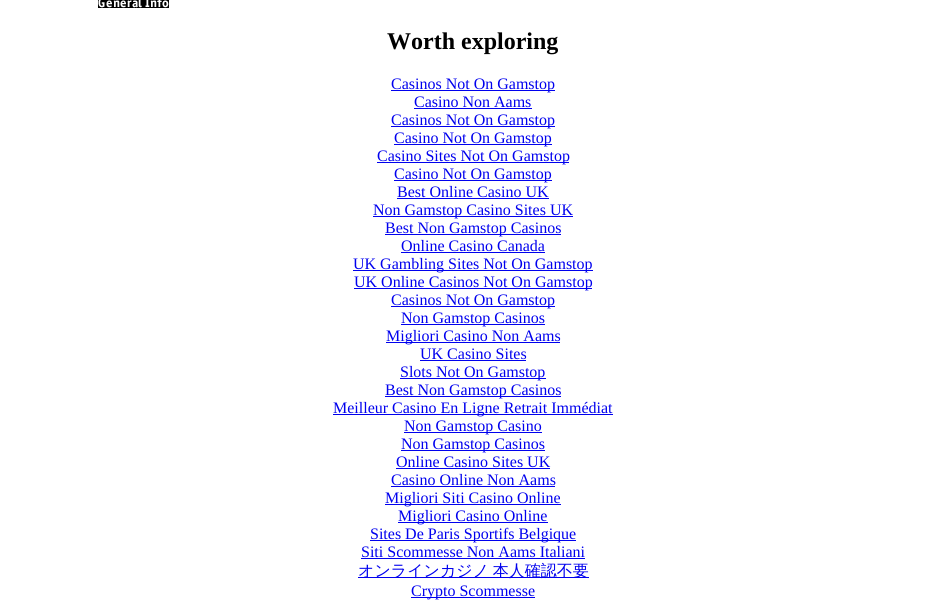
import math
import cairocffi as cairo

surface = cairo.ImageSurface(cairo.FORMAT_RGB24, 946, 607)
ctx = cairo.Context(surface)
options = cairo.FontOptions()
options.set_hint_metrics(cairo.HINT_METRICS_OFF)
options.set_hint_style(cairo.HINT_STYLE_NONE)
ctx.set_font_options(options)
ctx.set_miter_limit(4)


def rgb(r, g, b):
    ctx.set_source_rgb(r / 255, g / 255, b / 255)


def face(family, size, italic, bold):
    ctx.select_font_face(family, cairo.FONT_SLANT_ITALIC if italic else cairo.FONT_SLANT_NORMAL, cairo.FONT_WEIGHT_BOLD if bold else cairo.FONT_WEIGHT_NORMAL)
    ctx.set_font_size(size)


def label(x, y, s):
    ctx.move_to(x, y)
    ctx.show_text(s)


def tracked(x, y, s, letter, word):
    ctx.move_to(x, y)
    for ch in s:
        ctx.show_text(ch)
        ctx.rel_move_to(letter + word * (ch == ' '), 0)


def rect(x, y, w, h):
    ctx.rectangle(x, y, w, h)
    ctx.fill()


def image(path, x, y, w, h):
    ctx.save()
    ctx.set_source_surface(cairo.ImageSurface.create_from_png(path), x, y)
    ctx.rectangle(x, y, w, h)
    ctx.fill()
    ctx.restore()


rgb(255, 255, 255)
ctx.paint()
image('image0.png', 98, 0, 71, 8)
face('Liberation Serif', 24, 0, 1)
rgb(0, 0, 0)
label(387, 49, 'Worth exploring')
rgb(0, 0, 238)
rect(391, 90, 164, 1)
face('Liberation Serif', 16, 0, 0)
label(391, 89, 'Casinos Not On Gamstop')
label(414, 107, 'Casino Non Aams')
rect(414, 108, 118, 1)
rect(391, 126, 164, 1)
label(391, 125, 'Casinos Not On Gamstop')
rect(394, 144, 158, 1)
label(394, 143, 'Casino Not On Gamstop')
rect(377, 162, 192, 1)
label(377, 161, 'Casino Sites Not On Gamstop')
rect(394, 180, 158, 1)
label(394, 179, 'Casino Not On Gamstop')
label(397, 197, 'Best Online Casino UK')
rect(397, 198, 152, 1)
rect(373, 216, 200, 1)
label(373, 215, 'Non Gamstop Casino Sites UK')
rect(385, 234, 176, 1)
label(385, 233, 'Best Non Gamstop Casinos')
label(401, 251, 'Online Casino Canada')
rect(401, 252, 144, 1)
rect(353, 270, 240, 1)
label(353, 269, 'UK Gambling Sites Not On Gamstop')
rect(354, 288, 238, 1)
label(354, 287, 'UK Online Casinos Not On Gamstop')
rect(391, 306, 164, 1)
label(391, 305, 'Casinos Not On Gamstop')
rect(401, 324, 144, 1)
label(401, 323, 'Non Gamstop Casinos')
rect(386, 342, 174, 1)
label(386, 341, 'Migliori Casino Non Aams')
label(420, 359, 'UK Casino Sites')
rect(420, 360, 106, 1)
rect(400, 378, 146, 1)
label(400, 377, 'Slots Not On Gamstop')
rect(385, 396, 176, 1)
label(385, 395, 'Best Non Gamstop Casinos')
rect(333, 414, 280, 1)
label(333, 413, 'Meilleur Casino En Ligne Retrait Immédiat')
rect(404, 432, 138, 1)
label(404, 431, 'Non Gamstop Casino')
rect(401, 450, 144, 1)
label(401, 449, 'Non Gamstop Casinos')
label(396, 467, 'Online Casino Sites UK')
rect(396, 468, 154, 1)
label(391, 485, 'Casino Online Non Aams')
rect(391, 486, 164, 1)
rect(385, 504, 176, 1)
label(385, 503, 'Migliori Siti Casino Online')
rect(398, 522, 150, 1)
label(398, 521, 'Migliori Casino Online')
rect(370, 540, 206, 1)
label(370, 539, 'Sites De Paris Sportifs Belgique')
label(361, 557, 'Siti Scommesse Non Aams Italiani')
rect(361, 558, 224, 1)
rect(358, 577, 231, 1)
face('WenQuanYi Zen Hei Medium', 16, 0, 0)
tracked(358, 576, 'オンラインカジノ 本人確認不要', 0, -1)
rect(411, 597, 124, 1)
face('Liberation Serif', 16, 0, 0)
label(411, 596, 'Crypto Scommesse')
surface.write_to_png('render.png')
